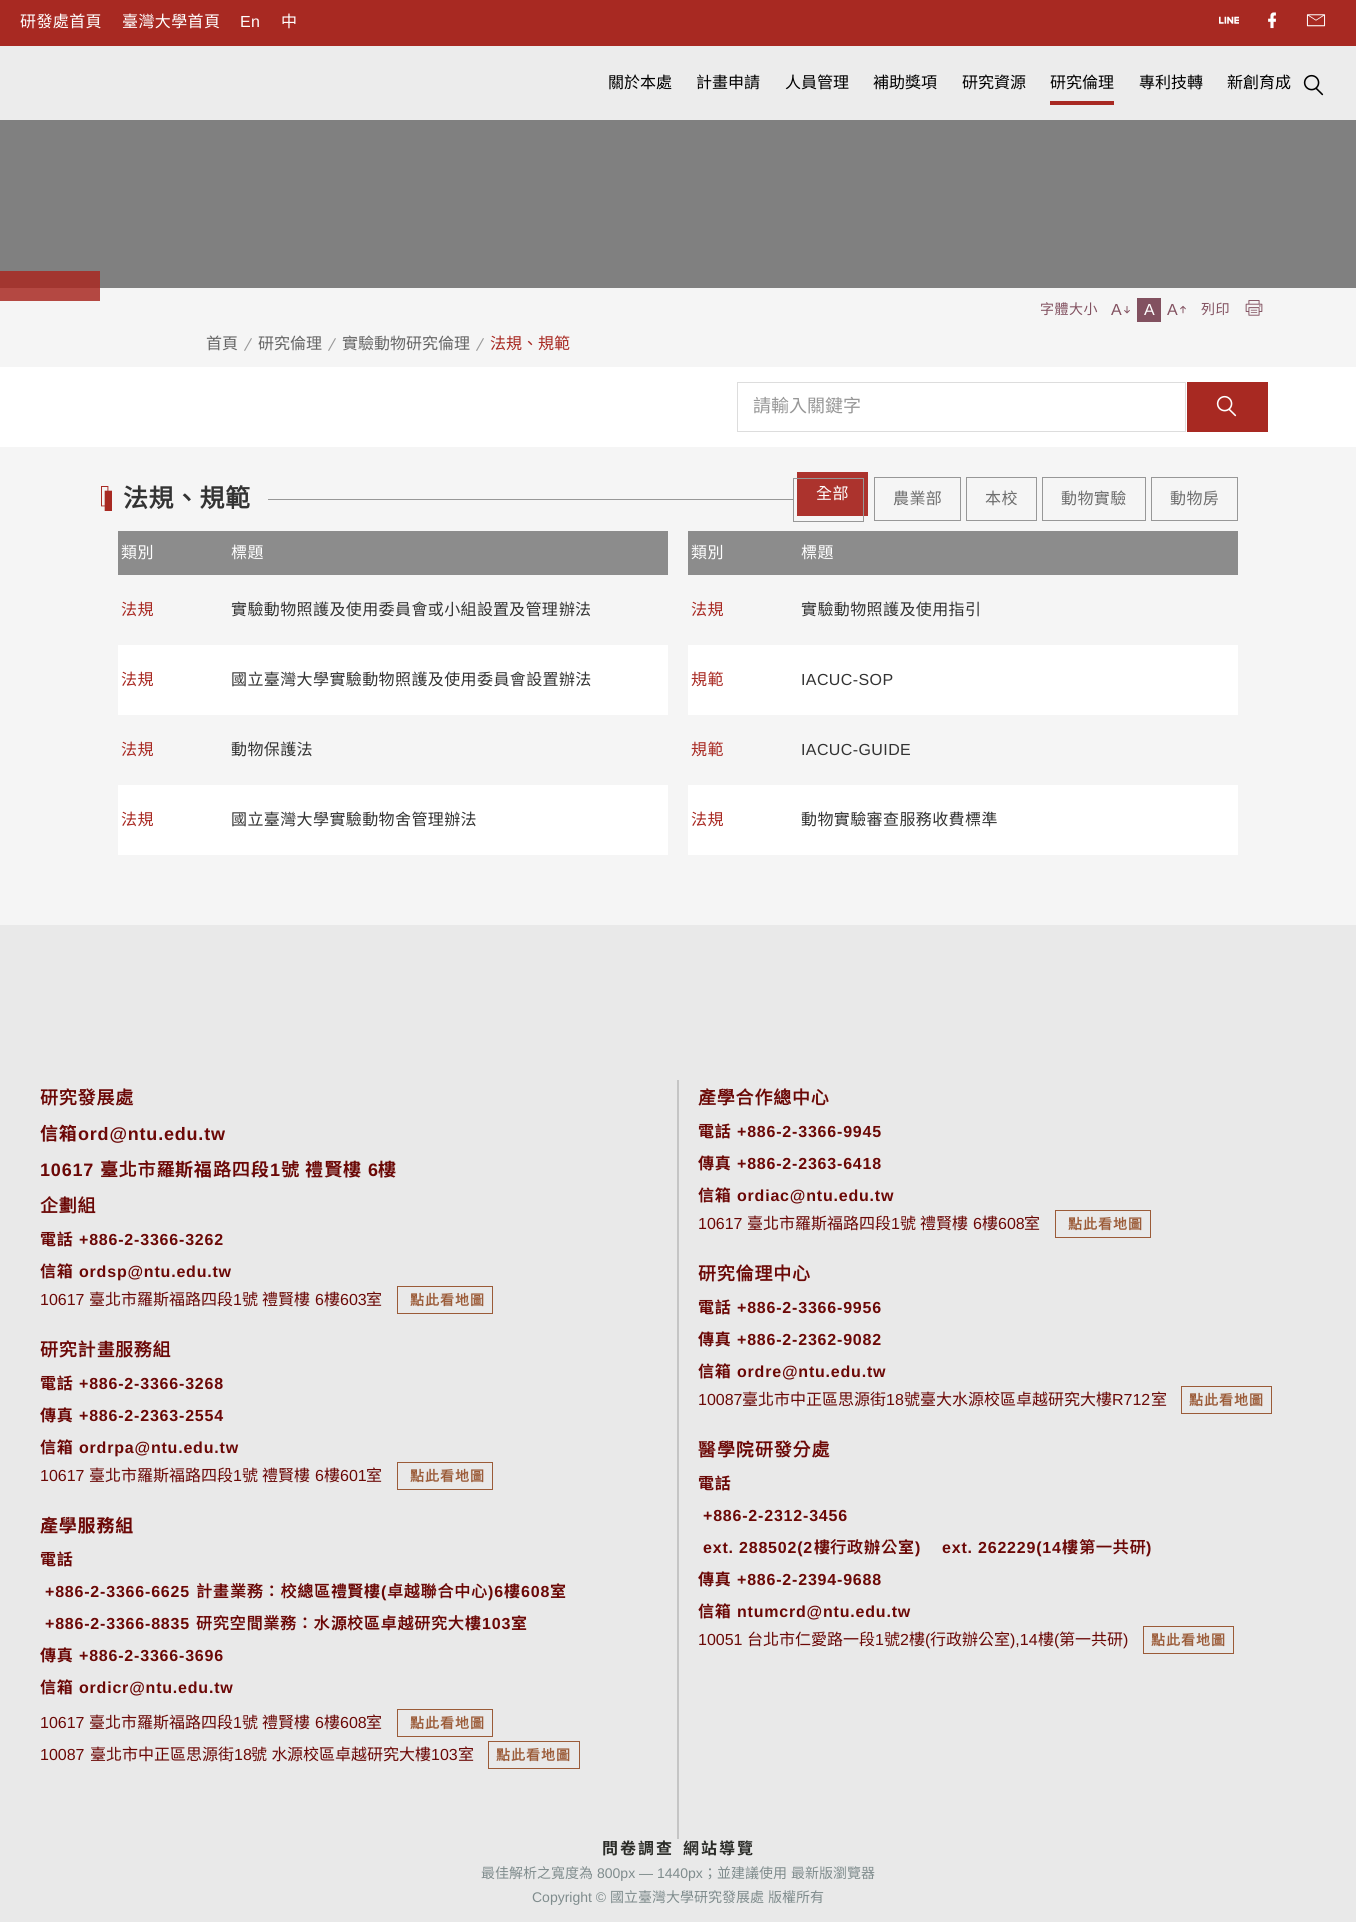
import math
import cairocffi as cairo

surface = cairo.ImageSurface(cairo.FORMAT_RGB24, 1356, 1922)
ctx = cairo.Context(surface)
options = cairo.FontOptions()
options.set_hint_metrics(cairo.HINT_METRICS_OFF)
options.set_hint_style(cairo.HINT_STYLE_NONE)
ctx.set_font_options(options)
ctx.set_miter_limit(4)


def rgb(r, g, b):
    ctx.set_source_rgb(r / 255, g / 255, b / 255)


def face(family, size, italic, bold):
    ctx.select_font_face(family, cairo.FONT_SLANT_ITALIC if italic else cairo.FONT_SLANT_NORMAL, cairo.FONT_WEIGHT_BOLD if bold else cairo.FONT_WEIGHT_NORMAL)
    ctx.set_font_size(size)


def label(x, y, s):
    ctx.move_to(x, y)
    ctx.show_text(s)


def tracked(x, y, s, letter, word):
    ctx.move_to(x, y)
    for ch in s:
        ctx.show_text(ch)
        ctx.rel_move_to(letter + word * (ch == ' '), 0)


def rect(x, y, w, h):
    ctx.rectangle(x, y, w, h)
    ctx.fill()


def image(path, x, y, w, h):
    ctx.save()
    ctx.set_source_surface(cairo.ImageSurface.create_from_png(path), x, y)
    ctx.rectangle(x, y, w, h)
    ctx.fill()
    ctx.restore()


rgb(255, 255, 255)
ctx.paint()
rgb(236, 236, 236)
rect(0, 46, 1356, 74)
rgb(168, 41, 34)
rect(0, 0, 1356, 46)
face('Noto Sans CJK TC', 16, 0, 0)
rgb(255, 255, 255)
tracked(20, 27, '研發處首頁', 0.4, 0)
tracked(122, 27, '臺灣大學首頁', 0.4, 0)
face('Liberation Sans', 16, 0, 0)
tracked(240, 27, 'En', 0.4, 0)
face('Noto Sans TC', 16, 0, 0)
tracked(281, 27, '中', 0.4, 0)
image('image0.png', 1219, 16, 20, 8)
image('image1.png', 1268, 12, 8, 17)
image('image2.png', 1306, 14, 20, 13)
rgb(0, 0, 0)
label(608, 88, '關於本處')
label(696, 88, '計畫申請')
label(785, 88, '人員管理')
face('Noto Sans CJK TC', 16, 0, 0)
label(873, 88, '補助獎')
face('Noto Sans TC', 16, 0, 0)
label(921, 88, '項')
face('Noto Sans CJK TC', 16, 0, 0)
label(962, 88, '研究資')
face('Noto Sans TC', 16, 0, 0)
label(1010, 88, '源')
face('Noto Sans CJK TC', 16, 0, 0)
label(1050, 88, '研究倫理')
rgb(168, 41, 34)
rect(1050, 101, 64, 4)
face('Noto Sans TC', 16, 0, 0)
rgb(0, 0, 0)
label(1139, 88, '專利技轉')
label(1227, 88, '新創育成')
image('image3.png', 1303, 74, 21, 22)
rgb(128, 128, 128)
rect(0, 120, 1356, 168)
rgb(162, 54, 48)
rect(0, 271, 100, 17)
rgb(245, 245, 245)
rect(88, 288, 1268, 79)
rgb(180, 72, 66)
rect(0, 288, 100, 13)
rgb(245, 245, 245)
rect(0, 301, 88, 66)
face('Noto Sans CJK TC', 14, 0, 0)
rgb(130, 81, 96)
tracked(1040, 314, '字體大小', 0.5, 0)
face('Liberation Sans', 16, 0, 0)
label(1111, 315, 'A')
image('image4.png', 1124, 306, 6, 8)
rect(1137, 298, 24, 24)
rgb(255, 255, 255)
label(1144, 315, 'A')
rgb(130, 81, 96)
label(1167, 315, 'A')
image('image5.png', 1180, 305, 6, 9)
face('Noto Sans TC', 14, 0, 0)
tracked(1201, 314, '列印', 0.5, 0)
image('image6.png', 1245, 300, 18, 16)
face('Noto Sans CJK TC', 16, 0, 0)
rgb(102, 102, 102)
label(206, 349, '首頁')
rgb(153, 153, 153)
ctx.new_path()
ctx.move_to(244, 350.5)
ctx.line_to(251, 338)
ctx.line_to(252, 338.5)
ctx.line_to(245, 351)
ctx.close_path()
ctx.fill()
rgb(102, 102, 102)
label(258, 349, '研究倫理')
rgb(153, 153, 153)
ctx.new_path()
ctx.move_to(328, 350.5)
ctx.line_to(335, 338)
ctx.line_to(336, 338.5)
ctx.line_to(329, 351)
ctx.close_path()
ctx.fill()
rgb(102, 102, 102)
label(342, 349, '實驗動物研究倫理')
rgb(153, 153, 153)
ctx.new_path()
ctx.move_to(476, 350.5)
ctx.line_to(483, 338)
ctx.line_to(484, 338.5)
ctx.line_to(477, 351)
ctx.close_path()
ctx.fill()
rgb(168, 41, 34)
label(490, 349, '法規、規範')
ctx.rectangle(737.5, 382.5, 448, 49)
rgb(221, 221, 221)
ctx.set_line_width(1)
ctx.stroke()
face('Noto Sans CJK TC', 18, 0, 0)
rgb(151, 151, 151)
label(753, 412, '請輸入關')
face('Noto Sans TC', 18, 0, 0)
label(825, 412, '鍵')
face('Noto Sans CJK TC', 18, 0, 0)
label(843, 412, '字')
rgb(168, 41, 34)
rect(1187, 382, 81, 50)
image('image7.png', 1216, 395, 21, 22)
rgb(245, 245, 245)
rect(0, 447, 1356, 478)
image('image8.png', 101, 486, 11, 25)
face('Noto Sans CJK TC', 25, 0, 1)
rgb(51, 51, 51)
tracked(123, 507, '法規、規範', 0.5, 0)
rgb(151, 151, 151)
rect(268, 499, 525, 1)
rgb(172, 51, 45)
rect(797, 472, 71, 44)
ctx.rectangle(793.5, 478.5, 70, 43)
rgb(151, 151, 151)
ctx.stroke()
face('Noto Sans TC', 16, 0, 0)
rgb(255, 255, 255)
tracked(816, 499, '全部', 0.4, 0)
ctx.rectangle(874.5, 477.5, 86, 43)
rgb(151, 151, 151)
ctx.stroke()
face('Noto Sans CJK TC', 16, 0, 0)
rgb(110, 110, 110)
tracked(893, 504, '農業部', 0.4, 0)
ctx.rectangle(966.5, 477.5, 70, 43)
rgb(151, 151, 151)
ctx.stroke()
face('Noto Sans TC', 16, 0, 0)
rgb(110, 110, 110)
tracked(985, 504, '本校', 0.4, 0)
ctx.rectangle(1042.5, 477.5, 103, 43)
rgb(151, 151, 151)
ctx.stroke()
rgb(110, 110, 110)
tracked(1061, 504, '動物實驗', 0.4, 0)
ctx.rectangle(1151.5, 477.5, 86, 43)
rgb(151, 151, 151)
ctx.stroke()
rgb(110, 110, 110)
tracked(1170, 504, '動物房', 0.4, 0)
rgb(140, 140, 140)
rect(118, 531, 550, 44)
rgb(255, 255, 255)
tracked(121, 558, '類別', 0.4, 0)
face('Noto Sans CJK TC', 16, 0, 0)
tracked(231, 558, '標題', 0.4, 0)
face('Noto Sans TC', 16, 0, 0)
rgb(168, 41, 34)
tracked(121, 615, '法規', 0.4, 0)
face('Noto Sans CJK TC', 16, 0, 0)
rgb(51, 51, 51)
tracked(231, 615, '實驗動物照護及使用委員會或小組設', 0.4, 0)
face('Noto Sans TC', 16, 0, 0)
tracked(493, 615, '置', 0.4, 0)
face('Noto Sans CJK TC', 16, 0, 0)
tracked(509, 615, '及管理', 0.4, 0)
face('Noto Sans TC', 16, 0, 0)
tracked(559, 615, '辦', 0.4, 0)
face('Noto Sans CJK TC', 16, 0, 0)
tracked(575, 615, '法', 0.4, 0)
rgb(255, 255, 255)
rect(118, 645, 550, 70)
face('Noto Sans TC', 16, 0, 0)
rgb(168, 41, 34)
tracked(121, 685, '法規', 0.4, 0)
rgb(51, 51, 51)
tracked(231, 685, '國立臺灣大學實驗動物照護及使用委員會設置辦法', 0.4, 0)
rgb(168, 41, 34)
tracked(121, 755, '法規', 0.4, 0)
rgb(51, 51, 51)
tracked(231, 755, '動物保護法', 0.4, 0)
rgb(255, 255, 255)
rect(118, 785, 550, 70)
rgb(168, 41, 34)
tracked(121, 825, '法規', 0.4, 0)
rgb(51, 51, 51)
tracked(231, 825, '國立臺灣大學實驗動物舍管理辦法', 0.4, 0)
rgb(140, 140, 140)
rect(688, 531, 550, 44)
rgb(255, 255, 255)
tracked(691, 558, '類別', 0.4, 0)
face('Noto Sans CJK TC', 16, 0, 0)
tracked(801, 558, '標題', 0.4, 0)
face('Noto Sans TC', 16, 0, 0)
rgb(168, 41, 34)
tracked(691, 615, '法規', 0.4, 0)
face('Noto Sans CJK TC', 16, 0, 0)
rgb(51, 51, 51)
tracked(801, 615, '實驗動物照護及使用指', 0.4, 0)
face('Noto Sans TC', 16, 0, 0)
tracked(965, 615, '引', 0.4, 0)
rgb(255, 255, 255)
rect(688, 645, 550, 70)
rgb(168, 41, 34)
tracked(691, 685, '規範', 0.4, 0)
face('Liberation Sans', 16, 0, 0)
rgb(51, 51, 51)
tracked(801, 685, 'IACUC-SOP', 0.4, 0)
face('Noto Sans TC', 16, 0, 0)
rgb(168, 41, 34)
tracked(691, 755, '規範', 0.4, 0)
face('Liberation Sans', 16, 0, 0)
rgb(51, 51, 51)
tracked(801, 755, 'IACUC-GUIDE', 0.4, 0)
rgb(255, 255, 255)
rect(688, 785, 550, 70)
face('Noto Sans TC', 16, 0, 0)
rgb(168, 41, 34)
tracked(691, 825, '法規', 0.4, 0)
rgb(51, 51, 51)
tracked(801, 825, '動物實驗審查服務收費標準', 0.4, 0)
rgb(233, 233, 233)
rect(0, 925, 1356, 997)
face('Noto Sans CJK TC', 18, 0, 1)
rgb(107, 8, 6)
tracked(40, 1104, '研究發展處', 0.8, 0)
face('Noto Sans TC', 18, 0, 1)
tracked(40, 1140, '信箱', 0.8, 0)
face('Liberation Sans', 18, 0, 1)
tracked(78, 1140, 'ord@ntu.edu.tw', 0.8, 0)
tracked(40, 1176, '10617', 0.8, 0)
face('Noto Sans CJK TC', 18, 0, 1)
tracked(100, 1176, '臺北市羅', 0.8, 0)
face('Noto Sans TC', 18, 0, 1)
tracked(175, 1176, '斯福', 0.8, 0)
face('Noto Sans CJK TC', 18, 0, 1)
tracked(213, 1176, '路四', 0.8, 0)
face('Noto Sans TC', 18, 0, 1)
tracked(251, 1176, '段', 0.8, 0)
face('Liberation Sans', 18, 0, 1)
tracked(270, 1176, '1', 0.8, 0)
face('Noto Sans CJK TC', 18, 0, 1)
tracked(281, 1176, '號', 0.8, 0)
face('Noto Sans TC', 18, 0, 1)
tracked(305, 1176, '禮', 0.8, 0)
face('Noto Sans CJK TC', 18, 0, 1)
tracked(324, 1176, '賢', 0.8, 0)
face('Noto Sans TC', 18, 0, 1)
tracked(343, 1176, '樓', 0.8, 0)
face('Liberation Sans', 18, 0, 1)
tracked(368, 1176, '6', 0.8, 0)
face('Noto Sans TC', 18, 0, 1)
tracked(378, 1176, '樓', 0.8, 0)
face('Noto Sans CJK TC', 18, 0, 1)
tracked(40, 1212, '企劃組', 0.8, 0)
face('Noto Sans TC', 16, 0, 1)
tracked(40, 1245, '電話', 0.8, 0)
face('Liberation Sans', 16, 0, 1)
tracked(79, 1245, '+886-2-3366-3262', 0.8, 0)
face('Noto Sans TC', 16, 0, 1)
tracked(40, 1277, '信箱', 0.8, 0)
face('Liberation Sans', 16, 0, 1)
tracked(79, 1277, 'ordsp@ntu.edu.tw', 0.8, 0)
face('Liberation Sans', 16, 0, 0)
label(40, 1305, '10617')
face('Noto Sans CJK TC', 16, 0, 0)
label(89, 1305, '臺北市羅')
face('Noto Sans TC', 16, 0, 0)
label(153, 1305, '斯福')
face('Noto Sans CJK TC', 16, 0, 0)
label(185, 1305, '路四')
face('Noto Sans TC', 16, 0, 0)
label(217, 1305, '段')
face('Liberation Sans', 16, 0, 0)
label(233, 1305, '1')
face('Noto Sans CJK TC', 16, 0, 0)
label(242, 1305, '號')
face('Noto Sans TC', 16, 0, 0)
label(262, 1305, '禮')
face('Noto Sans CJK TC', 16, 0, 0)
label(278, 1305, '賢')
face('Noto Sans TC', 16, 0, 0)
label(294, 1305, '樓')
face('Liberation Sans', 16, 0, 0)
label(315, 1305, '6')
face('Noto Sans TC', 16, 0, 0)
label(324, 1305, '樓')
face('Liberation Sans', 16, 0, 0)
label(340, 1305, '603')
face('Noto Sans TC', 16, 0, 0)
label(366, 1305, '室')
ctx.rectangle(397.5, 1286.5, 95, 27)
rgb(155, 91, 56)
ctx.stroke()
face('Noto Sans CJK TC', 14, 0, 1)
tracked(410, 1305, '點此看地圖', 1, 0)
face('Noto Sans CJK TC', 18, 0, 1)
rgb(107, 8, 6)
tracked(40, 1356, '研究計', 0.8, 0)
face('Noto Sans TC', 18, 0, 1)
tracked(97, 1356, '畫', 0.8, 0)
face('Noto Sans CJK TC', 18, 0, 1)
tracked(115, 1356, '服務組', 0.8, 0)
face('Noto Sans TC', 16, 0, 1)
tracked(40, 1389, '電話', 0.8, 0)
face('Liberation Sans', 16, 0, 1)
tracked(79, 1389, '+886-2-3366-3268', 0.8, 0)
face('Noto Sans TC', 16, 0, 1)
tracked(40, 1421, '傳真', 0.8, 0)
face('Liberation Sans', 16, 0, 1)
tracked(79, 1421, '+886-2-2363-2554', 0.8, 0)
face('Noto Sans TC', 16, 0, 1)
tracked(40, 1453, '信箱', 0.8, 0)
face('Liberation Sans', 16, 0, 1)
tracked(79, 1453, 'ordrpa@ntu.edu.tw', 0.8, 0)
face('Liberation Sans', 16, 0, 0)
label(40, 1481, '10617')
face('Noto Sans CJK TC', 16, 0, 0)
label(89, 1481, '臺北市羅')
face('Noto Sans TC', 16, 0, 0)
label(153, 1481, '斯福')
face('Noto Sans CJK TC', 16, 0, 0)
label(185, 1481, '路四')
face('Noto Sans TC', 16, 0, 0)
label(217, 1481, '段')
face('Liberation Sans', 16, 0, 0)
label(233, 1481, '1')
face('Noto Sans CJK TC', 16, 0, 0)
label(242, 1481, '號')
face('Noto Sans TC', 16, 0, 0)
label(262, 1481, '禮')
face('Noto Sans CJK TC', 16, 0, 0)
label(278, 1481, '賢')
face('Noto Sans TC', 16, 0, 0)
label(294, 1481, '樓')
face('Liberation Sans', 16, 0, 0)
label(315, 1481, '6')
face('Noto Sans TC', 16, 0, 0)
label(324, 1481, '樓')
face('Liberation Sans', 16, 0, 0)
label(340, 1481, '601')
face('Noto Sans TC', 16, 0, 0)
label(366, 1481, '室')
ctx.rectangle(397.5, 1462.5, 95, 27)
rgb(155, 91, 56)
ctx.stroke()
face('Noto Sans CJK TC', 14, 0, 1)
tracked(410, 1481, '點此看地圖', 1, 0)
face('Noto Sans TC', 18, 0, 1)
rgb(107, 8, 6)
tracked(40, 1532, '產學服務組', 0.8, 0)
face('Noto Sans TC', 16, 0, 1)
tracked(40, 1565, '電話', 0.8, 0)
face('Liberation Sans', 16, 0, 1)
tracked(45, 1597, '+886-2-3366-6625', 0.8, 0)
face('Noto Sans CJK TC', 16, 0, 1)
tracked(196, 1597, '計', 0.8, 0)
face('Noto Sans TC', 16, 0, 1)
tracked(213, 1597, '畫', 0.8, 0)
face('Noto Sans CJK TC', 16, 0, 1)
tracked(230, 1597, '業務：校總區', 0.8, 0)
face('Noto Sans TC', 16, 0, 1)
tracked(331, 1597, '禮', 0.8, 0)
face('Noto Sans CJK TC', 16, 0, 1)
tracked(347, 1597, '賢', 0.8, 0)
face('Noto Sans TC', 16, 0, 1)
tracked(364, 1597, '樓', 0.8, 0)
face('Liberation Sans', 16, 0, 1)
tracked(381, 1597, '(', 0.8, 0)
face('Noto Sans CJK TC', 16, 0, 1)
tracked(387, 1597, '卓越聯合中心', 0.8, 0)
face('Liberation Sans', 16, 0, 1)
tracked(488, 1597, ')6', 0.8, 0)
face('Noto Sans TC', 16, 0, 1)
tracked(504, 1597, '樓', 0.8, 0)
face('Liberation Sans', 16, 0, 1)
tracked(521, 1597, '608', 0.8, 0)
face('Noto Sans TC', 16, 0, 1)
tracked(550, 1597, '室', 0.8, 0)
face('Liberation Sans', 16, 0, 1)
tracked(45, 1629, '+886-2-3366-8835', 0.8, 0)
face('Noto Sans CJK TC', 16, 0, 1)
tracked(196, 1629, '研究空間業務：水', 0.8, 0)
face('Noto Sans TC', 16, 0, 1)
tracked(331, 1629, '源', 0.8, 0)
face('Noto Sans CJK TC', 16, 0, 1)
tracked(347, 1629, '校區卓越研究大', 0.8, 0)
face('Noto Sans TC', 16, 0, 1)
tracked(465, 1629, '樓', 0.8, 0)
face('Liberation Sans', 16, 0, 1)
tracked(482, 1629, '103', 0.8, 0)
face('Noto Sans TC', 16, 0, 1)
tracked(511, 1629, '室', 0.8, 0)
tracked(40, 1661, '傳真', 0.8, 0)
face('Liberation Sans', 16, 0, 1)
tracked(79, 1661, '+886-2-3366-3696', 0.8, 0)
face('Noto Sans TC', 16, 0, 1)
tracked(40, 1693, '信箱', 0.8, 0)
face('Liberation Sans', 16, 0, 1)
tracked(79, 1693, 'ordicr@ntu.edu.tw', 0.8, 0)
face('Liberation Sans', 16, 0, 0)
label(40, 1728, '10617')
face('Noto Sans CJK TC', 16, 0, 0)
label(89, 1728, '臺北市羅')
face('Noto Sans TC', 16, 0, 0)
label(153, 1728, '斯福')
face('Noto Sans CJK TC', 16, 0, 0)
label(185, 1728, '路四')
face('Noto Sans TC', 16, 0, 0)
label(217, 1728, '段')
face('Liberation Sans', 16, 0, 0)
label(233, 1728, '1')
face('Noto Sans CJK TC', 16, 0, 0)
label(242, 1728, '號')
face('Noto Sans TC', 16, 0, 0)
label(262, 1728, '禮')
face('Noto Sans CJK TC', 16, 0, 0)
label(278, 1728, '賢')
face('Noto Sans TC', 16, 0, 0)
label(294, 1728, '樓')
face('Liberation Sans', 16, 0, 0)
label(315, 1728, '6')
face('Noto Sans TC', 16, 0, 0)
label(324, 1728, '樓')
face('Liberation Sans', 16, 0, 0)
label(340, 1728, '608')
face('Noto Sans TC', 16, 0, 0)
label(366, 1728, '室')
ctx.rectangle(397.5, 1709.5, 95, 27)
rgb(155, 91, 56)
ctx.stroke()
face('Noto Sans CJK TC', 14, 0, 1)
tracked(410, 1728, '點此看地圖', 1, 0)
face('Liberation Sans', 16, 0, 0)
rgb(107, 8, 6)
label(40, 1760, '10087')
face('Noto Sans CJK TC', 16, 0, 0)
label(90, 1760, '臺北市中正區')
face('Noto Sans TC', 16, 0, 0)
label(186, 1760, '思源街')
face('Liberation Sans', 16, 0, 0)
label(234, 1760, '18')
face('Noto Sans CJK TC', 16, 0, 0)
tracked(251, 1760, '號 水', 0, 1)
face('Noto Sans TC', 16, 0, 0)
label(287, 1760, '源')
face('Noto Sans CJK TC', 16, 0, 0)
label(303, 1760, '校區卓越研究大')
face('Noto Sans TC', 16, 0, 0)
label(415, 1760, '樓')
face('Liberation Sans', 16, 0, 0)
label(431, 1760, '103')
face('Noto Sans TC', 16, 0, 0)
label(458, 1760, '室')
ctx.rectangle(488.5, 1741.5, 91, 27)
rgb(155, 91, 56)
ctx.stroke()
face('Noto Sans CJK TC', 14, 0, 1)
tracked(496, 1760, '點此看地圖', 1, 0)
rgb(197, 197, 197)
rect(677, 1080, 2, 759)
face('Noto Sans CJK TC', 18, 0, 1)
rgb(107, 8, 6)
tracked(698, 1104, '產學合作總中心', 0.8, 0)
face('Noto Sans TC', 16, 0, 1)
tracked(698, 1137, '電話', 0.8, 0)
face('Liberation Sans', 16, 0, 1)
tracked(737, 1137, '+886-2-3366-9945', 0.8, 0)
face('Noto Sans TC', 16, 0, 1)
tracked(698, 1169, '傳真', 0.8, 0)
face('Liberation Sans', 16, 0, 1)
tracked(737, 1169, '+886-2-2363-6418', 0.8, 0)
face('Noto Sans TC', 16, 0, 1)
tracked(698, 1201, '信箱', 0.8, 0)
face('Liberation Sans', 16, 0, 1)
tracked(737, 1201, 'ordiac@ntu.edu.tw', 0.8, 0)
face('Liberation Sans', 16, 0, 0)
label(698, 1229, '10617')
face('Noto Sans CJK TC', 16, 0, 0)
label(747, 1229, '臺北市羅')
face('Noto Sans TC', 16, 0, 0)
label(811, 1229, '斯福')
face('Noto Sans CJK TC', 16, 0, 0)
label(843, 1229, '路四')
face('Noto Sans TC', 16, 0, 0)
label(875, 1229, '段')
face('Liberation Sans', 16, 0, 0)
label(891, 1229, '1')
face('Noto Sans CJK TC', 16, 0, 0)
label(900, 1229, '號')
face('Noto Sans TC', 16, 0, 0)
label(920, 1229, '禮')
face('Noto Sans CJK TC', 16, 0, 0)
label(936, 1229, '賢')
face('Noto Sans TC', 16, 0, 0)
label(952, 1229, '樓')
face('Liberation Sans', 16, 0, 0)
label(973, 1229, '6')
face('Noto Sans TC', 16, 0, 0)
label(982, 1229, '樓')
face('Liberation Sans', 16, 0, 0)
label(998, 1229, '608')
face('Noto Sans TC', 16, 0, 0)
label(1024, 1229, '室')
ctx.rectangle(1055.5, 1210.5, 95, 27)
rgb(155, 91, 56)
ctx.stroke()
face('Noto Sans CJK TC', 14, 0, 1)
tracked(1068, 1229, '點此看地圖', 1, 0)
face('Noto Sans CJK TC', 18, 0, 1)
rgb(107, 8, 6)
tracked(698, 1280, '研究倫理中心', 0.8, 0)
face('Noto Sans TC', 16, 0, 1)
tracked(698, 1313, '電話', 0.8, 0)
face('Liberation Sans', 16, 0, 1)
tracked(737, 1313, '+886-2-3366-9956', 0.8, 0)
face('Noto Sans TC', 16, 0, 1)
tracked(698, 1345, '傳真', 0.8, 0)
face('Liberation Sans', 16, 0, 1)
tracked(737, 1345, '+886-2-2362-9082', 0.8, 0)
face('Noto Sans TC', 16, 0, 1)
tracked(698, 1377, '信箱', 0.8, 0)
face('Liberation Sans', 16, 0, 1)
tracked(737, 1377, 'ordre@ntu.edu.tw', 0.8, 0)
face('Liberation Sans', 16, 0, 0)
label(698, 1405, '10087')
face('Noto Sans CJK TC', 16, 0, 0)
label(742, 1405, '臺北市中正區')
face('Noto Sans TC', 16, 0, 0)
label(838, 1405, '思源街')
face('Liberation Sans', 16, 0, 0)
label(886, 1405, '18')
face('Noto Sans CJK TC', 16, 0, 0)
label(904, 1405, '號臺大水')
face('Noto Sans TC', 16, 0, 0)
label(968, 1405, '源')
face('Noto Sans CJK TC', 16, 0, 0)
label(984, 1405, '校區卓越研究大')
face('Noto Sans TC', 16, 0, 0)
label(1096, 1405, '樓')
face('Liberation Sans', 16, 0, 0)
label(1112, 1405, 'R712')
face('Noto Sans TC', 16, 0, 0)
label(1151, 1405, '室')
ctx.rectangle(1181.5, 1386.5, 90, 27)
rgb(155, 91, 56)
ctx.stroke()
face('Noto Sans CJK TC', 14, 0, 1)
tracked(1189, 1405, '點此看地圖', 1, 0)
face('Noto Sans TC', 18, 0, 1)
rgb(107, 8, 6)
tracked(698, 1456, '醫', 0.8, 0)
face('Noto Sans CJK TC', 18, 0, 1)
tracked(717, 1456, '學', 0.8, 0)
face('Noto Sans TC', 18, 0, 1)
tracked(736, 1456, '院', 0.8, 0)
face('Noto Sans CJK TC', 18, 0, 1)
tracked(755, 1456, '研發分處', 0.8, 0)
face('Noto Sans TC', 16, 0, 1)
tracked(698, 1489, '電話', 0.8, 0)
face('Liberation Sans', 16, 0, 1)
tracked(703, 1521, '+886-2-2312-3456', 0.8, 0)
tracked(703, 1553, 'ext. 288502(2', 0.8, 0)
face('Noto Sans TC', 16, 0, 1)
tracked(814, 1553, '樓', 0.8, 0)
face('Noto Sans CJK TC', 16, 0, 1)
tracked(830, 1553, '行政', 0.8, 0)
face('Noto Sans TC', 16, 0, 1)
tracked(864, 1553, '辦', 0.8, 0)
face('Noto Sans CJK TC', 16, 0, 1)
tracked(881, 1553, '公', 0.8, 0)
face('Noto Sans TC', 16, 0, 1)
tracked(898, 1553, '室', 0.8, 0)
face('Liberation Sans', 16, 0, 1)
tracked(915, 1553, ')', 0.8, 0)
tracked(942, 1553, 'ext. 262229(14', 0.8, 0)
face('Noto Sans TC', 16, 0, 1)
tracked(1062, 1553, '樓', 0.8, 0)
face('Noto Sans CJK TC', 16, 0, 1)
tracked(1079, 1553, '第一共研', 0.8, 0)
face('Liberation Sans', 16, 0, 1)
tracked(1146, 1553, ')', 0.8, 0)
face('Noto Sans TC', 16, 0, 1)
tracked(698, 1585, '傳真', 0.8, 0)
face('Liberation Sans', 16, 0, 1)
tracked(737, 1585, '+886-2-2394-9688', 0.8, 0)
face('Noto Sans TC', 16, 0, 1)
tracked(698, 1617, '信箱', 0.8, 0)
face('Liberation Sans', 16, 0, 1)
tracked(737, 1617, 'ntumcrd@ntu.edu.tw', 0.8, 0)
face('Liberation Sans', 16, 0, 0)
label(698, 1645, '10051')
face('Noto Sans TC', 16, 0, 0)
label(747, 1645, '台北市仁愛路一段')
face('Liberation Sans', 16, 0, 0)
label(875, 1645, '1')
face('Noto Sans TC', 16, 0, 0)
label(884, 1645, '號')
face('Liberation Sans', 16, 0, 0)
label(900, 1645, '2')
face('Noto Sans TC', 16, 0, 0)
label(909, 1645, '樓')
face('Liberation Sans', 16, 0, 0)
label(925, 1645, '(')
face('Noto Sans TC', 16, 0, 0)
label(930, 1645, '行政辦公室')
face('Liberation Sans', 16, 0, 0)
label(1010, 1645, '),14')
face('Noto Sans TC', 16, 0, 0)
label(1038, 1645, '樓')
face('Liberation Sans', 16, 0, 0)
label(1054, 1645, '(')
face('Noto Sans TC', 16, 0, 0)
label(1059, 1645, '第一共研')
face('Liberation Sans', 16, 0, 0)
label(1123, 1645, ')')
ctx.rectangle(1143.5, 1626.5, 90, 27)
rgb(155, 91, 56)
ctx.stroke()
face('Noto Sans CJK TC', 14, 0, 1)
tracked(1151, 1645, '點此看地圖', 1, 0)
face('Noto Sans TC', 16, 0, 1)
rgb(43, 44, 40)
tracked(602, 1854, '問卷調查', 2, 0)
tracked(683, 1854, '網站導覽', 2, 0)
face('Noto Sans CJK TC', 14, 0, 0)
rgb(127, 140, 141)
label(481, 1878, '最')
face('Noto Sans TC', 14, 0, 0)
label(495, 1878, '佳')
face('Noto Sans CJK TC', 14, 0, 0)
label(509, 1878, '解析之寬度為')
face('Liberation Sans', 14, 0, 0)
label(597, 1878, '800px — 1440px')
face('Noto Sans CJK TC', 14, 0, 0)
label(703, 1878, '；並建')
face('Noto Sans TC', 14, 0, 0)
label(745, 1878, '議')
face('Noto Sans CJK TC', 14, 0, 0)
label(759, 1878, '使用')
label(791, 1878, '最新版')
face('Noto Sans TC', 14, 0, 0)
label(833, 1878, '瀏')
face('Noto Sans CJK TC', 14, 0, 0)
label(847, 1878, '覽器')
face('Liberation Sans', 14, 0, 0)
label(532, 1902, 'Copyright ©')
face('Noto Sans TC', 14, 0, 0)
label(610, 1902, '國立臺灣大學研究發展處')
label(768, 1902, '版權所有')
surface.write_to_png('render.png')
